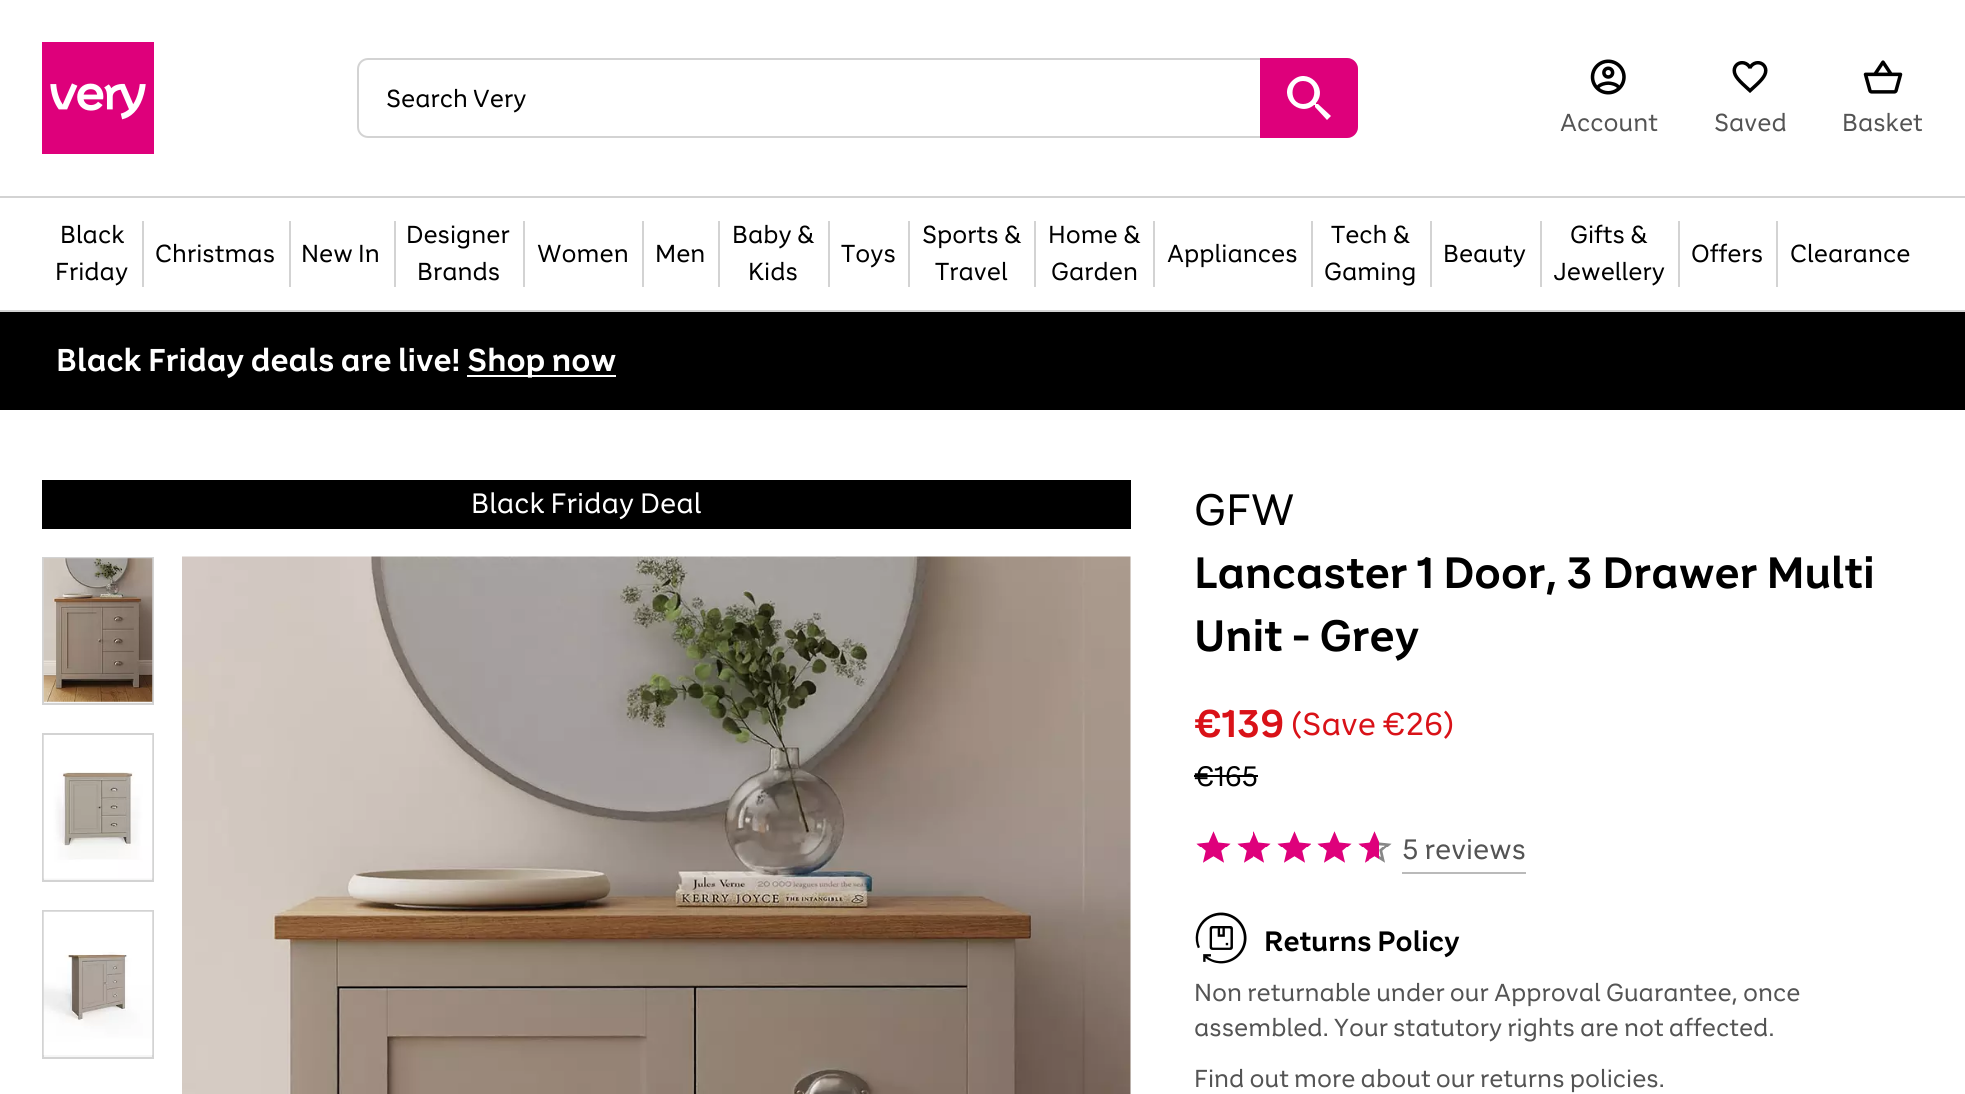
import math
import cairocffi as cairo

surface = cairo.ImageSurface(cairo.FORMAT_RGB24, 1965, 1094)
ctx = cairo.Context(surface)
options = cairo.FontOptions()
options.set_hint_metrics(cairo.HINT_METRICS_OFF)
options.set_hint_style(cairo.HINT_STYLE_NONE)
ctx.set_font_options(options)
ctx.set_miter_limit(4)


def rgb(r, g, b):
    ctx.set_source_rgb(r / 255, g / 255, b / 255)


def face(family, size, italic, bold):
    ctx.select_font_face(family, cairo.FONT_SLANT_ITALIC if italic else cairo.FONT_SLANT_NORMAL, cairo.FONT_WEIGHT_BOLD if bold else cairo.FONT_WEIGHT_NORMAL)
    ctx.set_font_size(size)


def label(x, y, s):
    ctx.move_to(x, y)
    ctx.show_text(s)


def rect(x, y, w, h):
    ctx.rectangle(x, y, w, h)
    ctx.fill()


def rrect(x, y, w, h, r):
    ctx.new_sub_path()
    for i, (u, v) in enumerate([(x + w - r, y + h - r), (x + r, y + h - r), (x + r, y + r), (x + w - r, y + r)]):
        ctx.arc(u, v, r, i * math.pi / 2, (i + 1) * math.pi / 2)
    ctx.close_path()


def image(path, x, y, w, h):
    ctx.save()
    ctx.set_source_surface(cairo.ImageSurface.create_from_png(path), x, y)
    ctx.rectangle(x, y, w, h)
    ctx.fill()
    ctx.restore()


rgb(255, 255, 255)
ctx.paint()
rgb(211, 211, 211)
rect(0, 310, 1965, 2)
image('image0.png', 42, 42, 112, 112)
rrect(358, 59, 999, 78, 10)
ctx.stroke()
face('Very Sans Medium', 24.5, 0, 0)
rgb(0, 0, 0)
label(386, 107, 'Search Very')
rgb(222, 0, 123)
ctx.new_path()
ctx.move_to(1260, 58)
ctx.line_to(1347, 58)
ctx.curve_to(1353, 58, 1358, 63, 1358, 69)
ctx.line_to(1358, 127)
ctx.curve_to(1358, 133, 1353, 138, 1347, 138)
ctx.line_to(1260, 138)
ctx.close_path()
ctx.fill()
rgb(255, 255, 255)
ctx.new_path()
ctx.move_to(1318, 104)
ctx.line_to(1316, 104)
ctx.line_to(1316, 103)
ctx.curve_to(1329, 88, 1307, 66, 1292, 81)
ctx.curve_to(1277, 96, 1299, 118, 1314, 105)
ctx.line_to(1315, 105)
ctx.line_to(1315, 107)
ctx.line_to(1327, 120)
ctx.line_to(1331, 116)
ctx.close_path()
ctx.move_to(1303, 104)
ctx.curve_to(1289, 104, 1289, 81, 1303, 81)
ctx.curve_to(1318, 81, 1318, 104, 1303, 104)
ctx.fill()
image('image1.png', 1590, 59, 36, 36)
rgb(84, 84, 84)
label(1560, 131, 'Account')
image('image2.png', 1732, 61, 36, 32)
label(1714, 131, 'Saved')
image('image3.png', 1863, 60, 40, 34)
label(1842, 131, 'Basket')
rgb(211, 211, 211)
rect(0, 196, 1965, 2)
rgb(0, 0, 0)
label(60, 243, 'Black')
label(55, 280, 'Friday')
rgb(211, 211, 211)
rect(142, 221, 2, 66)
rgb(0, 0, 0)
label(155, 262, 'Christmas')
rgb(211, 211, 211)
rect(289, 221, 2, 66)
rgb(0, 0, 0)
label(301, 262, 'New In')
rgb(211, 211, 211)
rect(394, 221, 2, 66)
rgb(0, 0, 0)
label(406, 243, 'Designer')
label(417, 280, 'Brands')
rgb(211, 211, 211)
rect(523, 221, 2, 66)
rgb(0, 0, 0)
label(537, 262, 'Women')
rgb(211, 211, 211)
rect(642, 221, 2, 66)
rgb(0, 0, 0)
label(655, 262, 'Men')
rgb(211, 211, 211)
rect(718, 221, 2, 66)
rgb(0, 0, 0)
label(732, 243, 'Baby &')
label(748, 280, 'Kids')
rgb(211, 211, 211)
rect(828, 221, 2, 66)
rgb(0, 0, 0)
label(841, 262, 'Toys')
rgb(211, 211, 211)
rect(908, 221, 2, 66)
rgb(0, 0, 0)
label(922, 243, 'Sports &')
label(935, 280, 'Travel')
rgb(211, 211, 211)
rect(1034, 221, 2, 66)
rgb(0, 0, 0)
label(1048, 243, 'Home &')
label(1051, 280, 'Garden')
rgb(211, 211, 211)
rect(1153, 221, 2, 66)
rgb(0, 0, 0)
label(1167, 262, 'Appliances')
rgb(211, 211, 211)
rect(1311, 221, 2, 66)
rgb(0, 0, 0)
label(1331, 243, 'Tech &')
label(1324, 280, 'Gaming')
rgb(211, 211, 211)
rect(1430, 221, 2, 66)
rgb(0, 0, 0)
label(1443, 262, 'Beauty')
rgb(211, 211, 211)
rect(1540, 221, 2, 66)
rgb(0, 0, 0)
label(1570, 243, 'Gifts &')
label(1553, 280, 'Jewellery')
rgb(211, 211, 211)
rect(1678, 221, 2, 66)
rgb(0, 0, 0)
label(1691, 262, 'Offers')
rgb(211, 211, 211)
rect(1776, 221, 2, 66)
rgb(0, 0, 0)
label(1790, 262, 'Clearance')
rect(0, 312, 1965, 98)
face('Very Sans', 31.5, 0, 1)
rgb(255, 255, 255)
label(56, 371, 'Black Friday deals are live!')
rect(467, 375, 149, 2)
label(467, 371, 'Shop now')
rgb(0, 0, 0)
rect(42, 480, 1089, 49)
face('Very Sans Medium', 28, 0, 0)
rgb(255, 255, 255)
label(471, 513, 'Black Friday Deal')
rgb(246, 246, 246)
rect(44, 701, 108, 2)
ctx.rectangle(43, 558, 110, 146)
rgb(211, 211, 211)
ctx.stroke()
image('image4.png', 43, 558, 110, 144)
rgb(246, 246, 246)
rect(44, 878, 108, 2)
ctx.rectangle(43, 734, 110, 147)
rgb(211, 211, 211)
ctx.stroke()
image('image5.png', 43, 735, 110, 144)
rgb(246, 246, 246)
rect(44, 1055, 108, 2)
ctx.rectangle(43, 911, 110, 147)
rgb(211, 211, 211)
ctx.stroke()
image('image6.png', 43, 911, 110, 144)
image('image7.png', 182, 556, 949, 538)
face('Very Sans Medium', 43.75, 0, 0)
rgb(0, 0, 0)
label(1194, 525, 'GFW')
face('Very Sans', 43.75, 0, 1)
label(1194, 588, 'Lancaster 1 Door, 3 Drawer Multi')
label(1194, 651, 'Unit - Grey')
face('Very Sans', 38.5, 0, 1)
rgb(217, 18, 24)
label(1194, 737, '€139')
face('Very Sans Medium', 31.5, 0, 0)
label(1291, 735, '(Save €26)')
face('Very Sans Medium', 28, 0, 0)
rgb(0, 0, 0)
label(1194, 786, '€165')
rect(1194, 775, 64, 2)
image('image8.png', 1196, 831, 183, 32)
image('image9.png', 1379, 842, 13, 21)
rgb(84, 84, 84)
label(1402, 859, '5 reviews')
rgb(186, 186, 186)
rect(1402, 872, 124, 2)
image('image10.png', 1195, 912, 52, 52)
face('Very Sans', 28, 0, 1)
rgb(0, 0, 0)
label(1264, 951, 'Returns Policy')
face('Very Sans Medium', 24.5, 0, 0)
rgb(84, 84, 84)
label(1194, 1001, 'Non returnable under our Approval Guarantee, once')
label(1194, 1036, 'assembled. Your statutory rights are not affected.')
label(1194, 1087, 'Find out more about our returns policies.')
surface.write_to_png('render.png')
